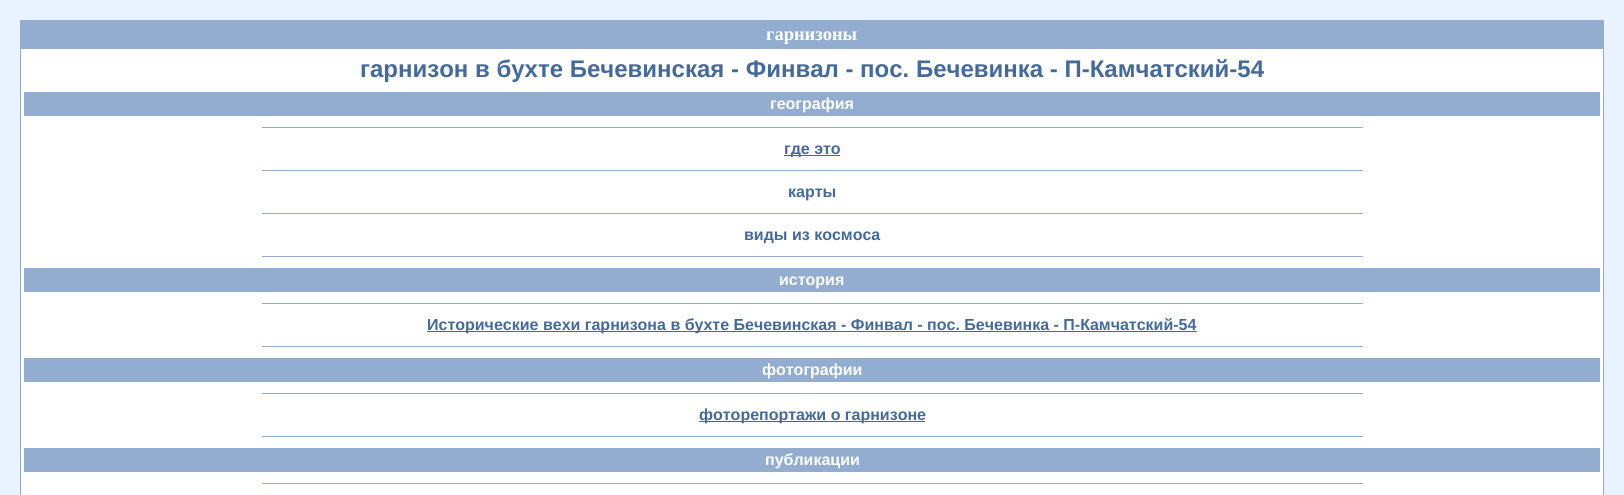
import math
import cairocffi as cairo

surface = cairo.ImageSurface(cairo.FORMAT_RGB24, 1624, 495)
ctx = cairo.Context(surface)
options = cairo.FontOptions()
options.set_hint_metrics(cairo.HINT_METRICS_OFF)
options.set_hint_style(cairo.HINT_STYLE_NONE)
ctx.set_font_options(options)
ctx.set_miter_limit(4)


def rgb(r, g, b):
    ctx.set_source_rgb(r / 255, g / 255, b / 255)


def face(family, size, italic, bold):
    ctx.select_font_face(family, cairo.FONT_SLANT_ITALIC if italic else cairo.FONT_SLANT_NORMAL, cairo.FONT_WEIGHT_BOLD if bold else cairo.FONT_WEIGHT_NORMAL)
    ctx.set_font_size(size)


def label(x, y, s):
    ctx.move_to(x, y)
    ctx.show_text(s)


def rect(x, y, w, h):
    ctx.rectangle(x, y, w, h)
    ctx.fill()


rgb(232, 243, 255)
ctx.paint()
rgb(147, 173, 208)
rect(20, 20, 1584, 475)
face('Liberation Serif', 18.5, 0, 1)
rgb(255, 255, 255)
label(766, 40, 'гарнизоны')
rect(21, 49, 1582, 446)
face('Liberation Sans', 24, 0, 1)
rgb(68, 106, 157)
label(360, 77, 'гарнизон в бухте Бечевинская - Финвал - пос. Бечевинка - П-Камчатский-54')
rgb(147, 173, 208)
rect(24, 92, 1576, 24)
face('Liberation Sans', 16, 0, 1)
rgb(255, 255, 255)
label(770, 109, 'география')
rgb(147, 173, 208)
rect(262, 127, 1101, 1)
rgb(68, 106, 157)
rect(784, 155, 56, 1)
label(784, 154, 'где это')
rgb(147, 173, 208)
rect(262, 170, 1101, 1)
rgb(68, 106, 157)
label(788, 197, 'карты')
rgb(147, 173, 208)
rect(262, 213, 1101, 1)
rgb(68, 106, 157)
label(744, 240, 'виды из космоса')
rgb(147, 173, 208)
rect(262, 256, 1101, 1)
rect(24, 268, 1576, 24)
rgb(255, 255, 255)
label(779, 285, 'история')
rgb(147, 173, 208)
rect(262, 303, 1101, 1)
rgb(68, 106, 157)
rect(427, 331, 770, 1)
label(427, 330, 'Исторические вехи гарнизона в бухте Бечевинская - Финвал - пос. Бечевинка - П-Камчатский-54')
rgb(147, 173, 208)
rect(262, 346, 1101, 1)
rect(24, 358, 1576, 24)
rgb(255, 255, 255)
label(762, 375, 'фотографии')
rgb(147, 173, 208)
rect(262, 393, 1101, 1)
rgb(68, 106, 157)
rect(699, 421, 226, 1)
label(699, 420, 'фоторепортажи о гарнизоне')
rgb(147, 173, 208)
rect(262, 436, 1101, 1)
rect(24, 448, 1576, 24)
rgb(255, 255, 255)
label(765, 465, 'публикации')
rgb(147, 173, 208)
rect(262, 483, 1101, 1)
surface.write_to_png('render.png')
